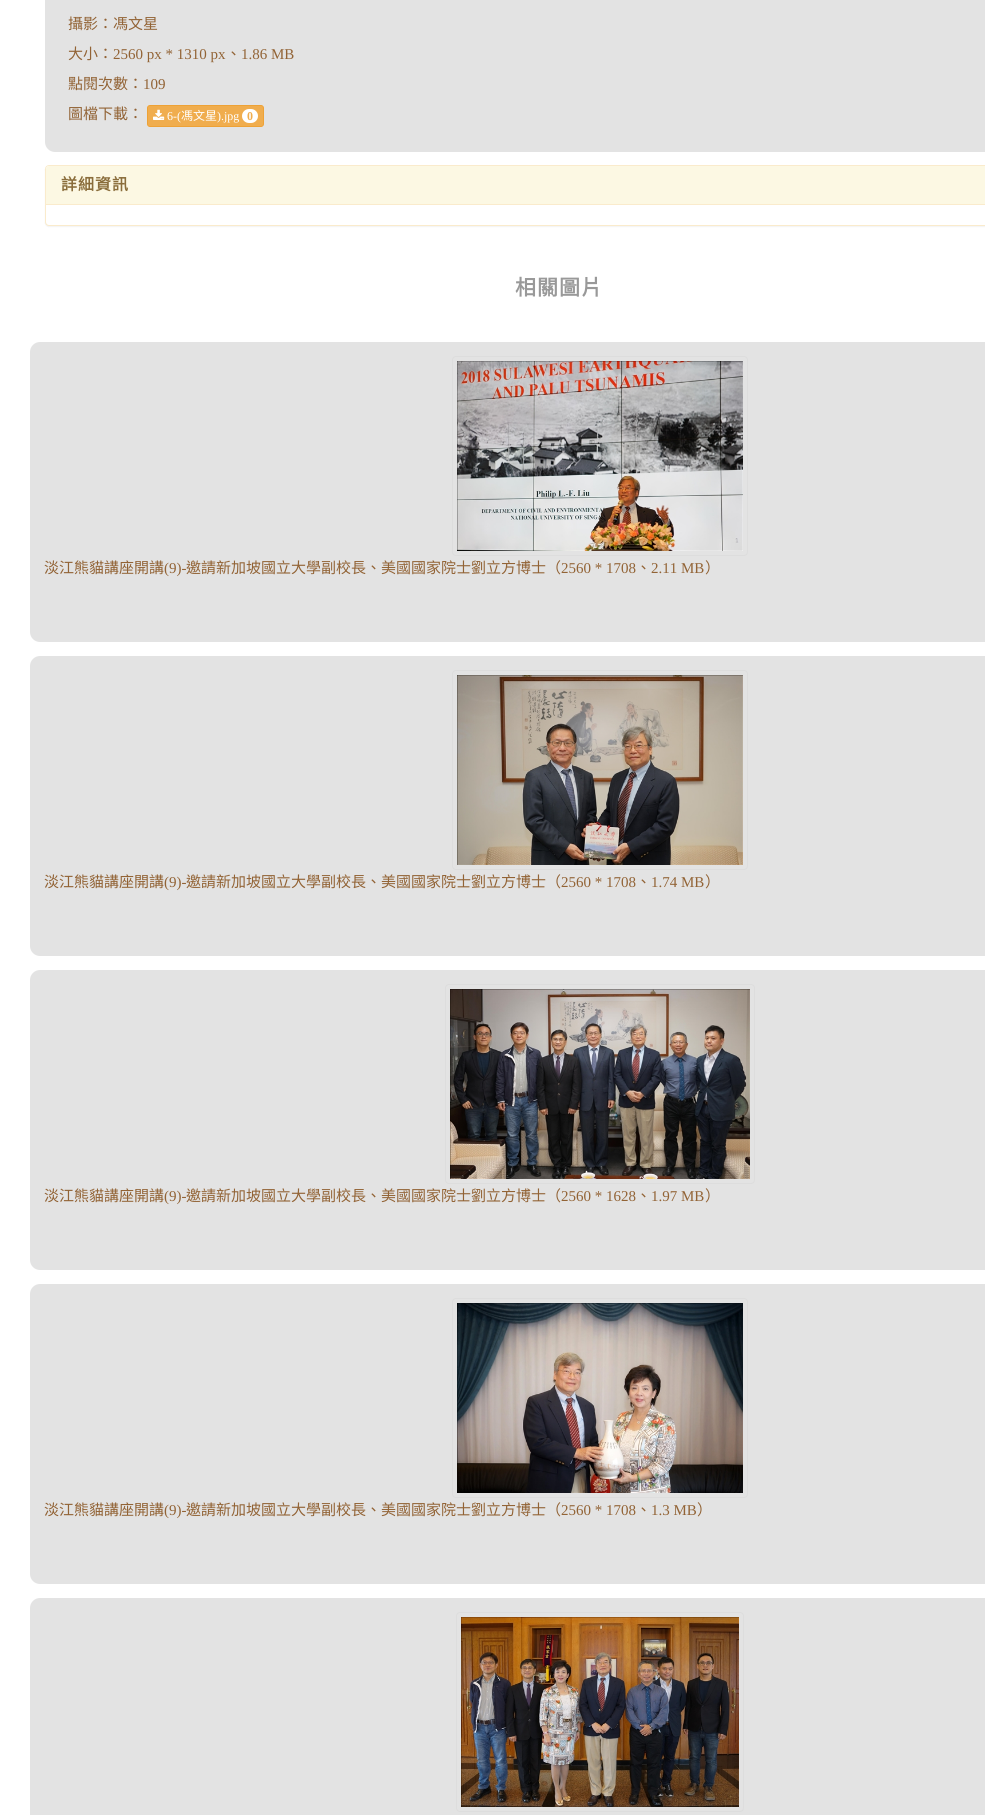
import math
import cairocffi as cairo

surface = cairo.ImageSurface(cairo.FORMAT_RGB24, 985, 1815)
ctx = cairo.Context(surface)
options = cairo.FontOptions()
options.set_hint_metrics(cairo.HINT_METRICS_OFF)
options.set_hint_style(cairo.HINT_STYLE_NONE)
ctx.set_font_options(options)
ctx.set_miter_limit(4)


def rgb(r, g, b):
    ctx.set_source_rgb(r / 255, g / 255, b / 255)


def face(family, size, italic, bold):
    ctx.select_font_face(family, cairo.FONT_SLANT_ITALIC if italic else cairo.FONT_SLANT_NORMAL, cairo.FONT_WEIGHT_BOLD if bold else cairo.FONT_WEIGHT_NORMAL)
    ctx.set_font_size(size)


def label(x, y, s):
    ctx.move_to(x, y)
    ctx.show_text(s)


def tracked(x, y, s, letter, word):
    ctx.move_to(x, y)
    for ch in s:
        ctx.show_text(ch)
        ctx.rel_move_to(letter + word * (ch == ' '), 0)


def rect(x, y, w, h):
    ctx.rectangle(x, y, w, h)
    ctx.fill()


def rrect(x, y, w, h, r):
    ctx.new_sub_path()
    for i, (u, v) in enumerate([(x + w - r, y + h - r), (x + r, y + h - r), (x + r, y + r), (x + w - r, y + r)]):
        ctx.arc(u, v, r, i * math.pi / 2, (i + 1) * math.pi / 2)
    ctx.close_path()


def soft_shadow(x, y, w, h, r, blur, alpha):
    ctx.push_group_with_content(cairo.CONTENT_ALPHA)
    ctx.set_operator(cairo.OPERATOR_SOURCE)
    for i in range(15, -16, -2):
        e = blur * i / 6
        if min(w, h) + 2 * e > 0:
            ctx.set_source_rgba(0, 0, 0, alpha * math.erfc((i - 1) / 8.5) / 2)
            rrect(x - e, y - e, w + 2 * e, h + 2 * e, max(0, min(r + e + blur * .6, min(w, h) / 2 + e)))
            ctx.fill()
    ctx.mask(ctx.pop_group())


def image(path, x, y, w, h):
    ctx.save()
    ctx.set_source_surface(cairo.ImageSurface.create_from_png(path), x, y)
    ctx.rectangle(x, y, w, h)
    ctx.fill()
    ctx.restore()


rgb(255, 255, 255)
ctx.paint()
rgb(227, 227, 227)
rrect(45, -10, 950, 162, 10)
ctx.fill()
face('Noto Sans CJK TC', 15, 0, 0)
rgb(146, 99, 53)
label(68, 29, '攝影：馮文星')
label(68, 59, '大小：')
face('Liberation Serif', 15, 0, 0)
label(113, 59, '2560 px * 1310 px')
face('Noto Sans CJK TC', 15, 0, 0)
label(226, 59, '、')
face('Liberation Serif', 15, 0, 0)
label(241, 59, '1.86 MB')
face('Noto Sans CJK TC', 15, 0, 0)
label(68, 89, '點閱次數：')
face('Liberation Serif', 15, 0, 0)
label(143, 89, '109')
face('Noto Sans CJK TC', 15, 0, 0)
label(68, 119, '圖檔下載：')
rgb(240, 173, 78)
rrect(147.5, 105.5, 116, 21, 2.5)
ctx.fill_preserve()
rgb(238, 162, 54)
ctx.set_line_width(1)
ctx.stroke()
image('image0.png', 153, 109, 12, 11)
face('Liberation Serif', 12, 0, 0)
rgb(255, 255, 255)
label(167, 120, '6-(')
face('Noto Sans CJK TC', 12, 0, 0)
label(181, 120, '馮文星')
face('Liberation Serif', 12, 0, 0)
label(217, 120, ').jpg')
rrect(242, 109, 16, 14, 7)
ctx.fill()
face('Liberation Serif', 12, 0, 1)
rgb(240, 173, 78)
label(247, 120, '0')
rgb(0, 0, 0)
soft_shadow(45, 166, 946, 61, 4, 0.5, 0.05)
rgb(255, 255, 255)
rrect(45.5, 165.5, 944, 60, 3.5)
ctx.fill_preserve()
rgb(250, 235, 204)
ctx.stroke()
rgb(252, 248, 227)
ctx.new_path()
ctx.move_to(49, 166)
ctx.line_to(985, 166)
ctx.curve_to(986.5, 166, 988, 167.5, 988, 169)
ctx.line_to(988, 205)
ctx.line_to(46, 205)
ctx.line_to(46, 169)
ctx.curve_to(46, 167.5, 47.5, 166, 49, 166)
ctx.close_path()
ctx.fill()
rgb(250, 235, 204)
rect(46, 204, 939, 1)
face('Noto Sans CJK TC', 16, 0, 1)
rgb(138, 109, 59)
tracked(61, 190, '詳細資訊', 1, 0)
face('Noto Sans CJK TC', 21, 0, 1)
rgb(153, 153, 153)
tracked(515, 295, '相關圖片', 1, 0)
rgb(227, 227, 227)
rrect(30, 342, 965, 300, 10)
ctx.fill()
rrect(452.5, 356.5, 295, 199, 3.5)
rgb(221, 221, 221)
ctx.stroke()
image('image1.png', 457, 361, 286, 190)
face('Noto Sans CJK TC', 15, 0, 0)
rgb(146, 99, 53)
label(44, 573, '淡江熊貓講座開講')
face('Liberation Serif', 15, 0, 0)
label(164, 573, '(9)-')
face('Noto Sans CJK TC', 15, 0, 0)
label(186, 573, '邀請新加坡國立大學副校長、美國國家院士劉立方博士（')
face('Liberation Serif', 15, 0, 0)
label(561, 573, '2560 * 1708')
face('Noto Sans CJK TC', 15, 0, 0)
label(636, 573, '、')
face('Liberation Serif', 15, 0, 0)
label(651, 573, '2.11 MB')
face('Noto Sans CJK TC', 15, 0, 0)
label(705, 573, '）')
rgb(227, 227, 227)
rrect(30, 656, 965, 300, 10)
ctx.fill()
rrect(452.5, 670.5, 295, 199, 3.5)
rgb(221, 221, 221)
ctx.stroke()
image('image2.png', 457, 675, 286, 190)
rgb(146, 99, 53)
label(44, 887, '淡江熊貓講座開講')
face('Liberation Serif', 15, 0, 0)
label(164, 887, '(9)-')
face('Noto Sans CJK TC', 15, 0, 0)
label(186, 887, '邀請新加坡國立大學副校長、美國國家院士劉立方博士（')
face('Liberation Serif', 15, 0, 0)
label(561, 887, '2560 * 1708')
face('Noto Sans CJK TC', 15, 0, 0)
label(636, 887, '、')
face('Liberation Serif', 15, 0, 0)
label(651, 887, '1.74 MB')
face('Noto Sans CJK TC', 15, 0, 0)
label(705, 887, '）')
rgb(227, 227, 227)
rrect(30, 970, 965, 300, 10)
ctx.fill()
rrect(445.5, 984.5, 309, 199, 3.5)
rgb(221, 221, 221)
ctx.stroke()
image('image3.png', 450, 989, 300, 190)
rgb(146, 99, 53)
label(44, 1201, '淡江熊貓講座開講')
face('Liberation Serif', 15, 0, 0)
label(164, 1201, '(9)-')
face('Noto Sans CJK TC', 15, 0, 0)
label(186, 1201, '邀請新加坡國立大學副校長、美國國家院士劉立方博士（')
face('Liberation Serif', 15, 0, 0)
label(561, 1201, '2560 * 1628')
face('Noto Sans CJK TC', 15, 0, 0)
label(636, 1201, '、')
face('Liberation Serif', 15, 0, 0)
label(651, 1201, '1.97 MB')
face('Noto Sans CJK TC', 15, 0, 0)
label(705, 1201, '）')
rgb(227, 227, 227)
rrect(30, 1284, 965, 300, 10)
ctx.fill()
rrect(452.5, 1298.5, 295, 199, 3.5)
rgb(221, 221, 221)
ctx.stroke()
image('image4.png', 457, 1303, 286, 190)
rgb(146, 99, 53)
label(44, 1515, '淡江熊貓講座開講')
face('Liberation Serif', 15, 0, 0)
label(164, 1515, '(9)-')
face('Noto Sans CJK TC', 15, 0, 0)
label(186, 1515, '邀請新加坡國立大學副校長、美國國家院士劉立方博士（')
face('Liberation Serif', 15, 0, 0)
label(561, 1515, '2560 * 1708')
face('Noto Sans CJK TC', 15, 0, 0)
label(636, 1515, '、')
face('Liberation Serif', 15, 0, 0)
label(651, 1515, '1.3 MB')
face('Noto Sans CJK TC', 15, 0, 0)
label(697, 1515, '）')
rgb(227, 227, 227)
rrect(30, 1598, 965, 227, 10)
ctx.fill()
rrect(456.5, 1612.5, 287, 199, 3.5)
rgb(221, 221, 221)
ctx.stroke()
image('image5.png', 461, 1617, 278, 190)
surface.write_to_png('render.png')
